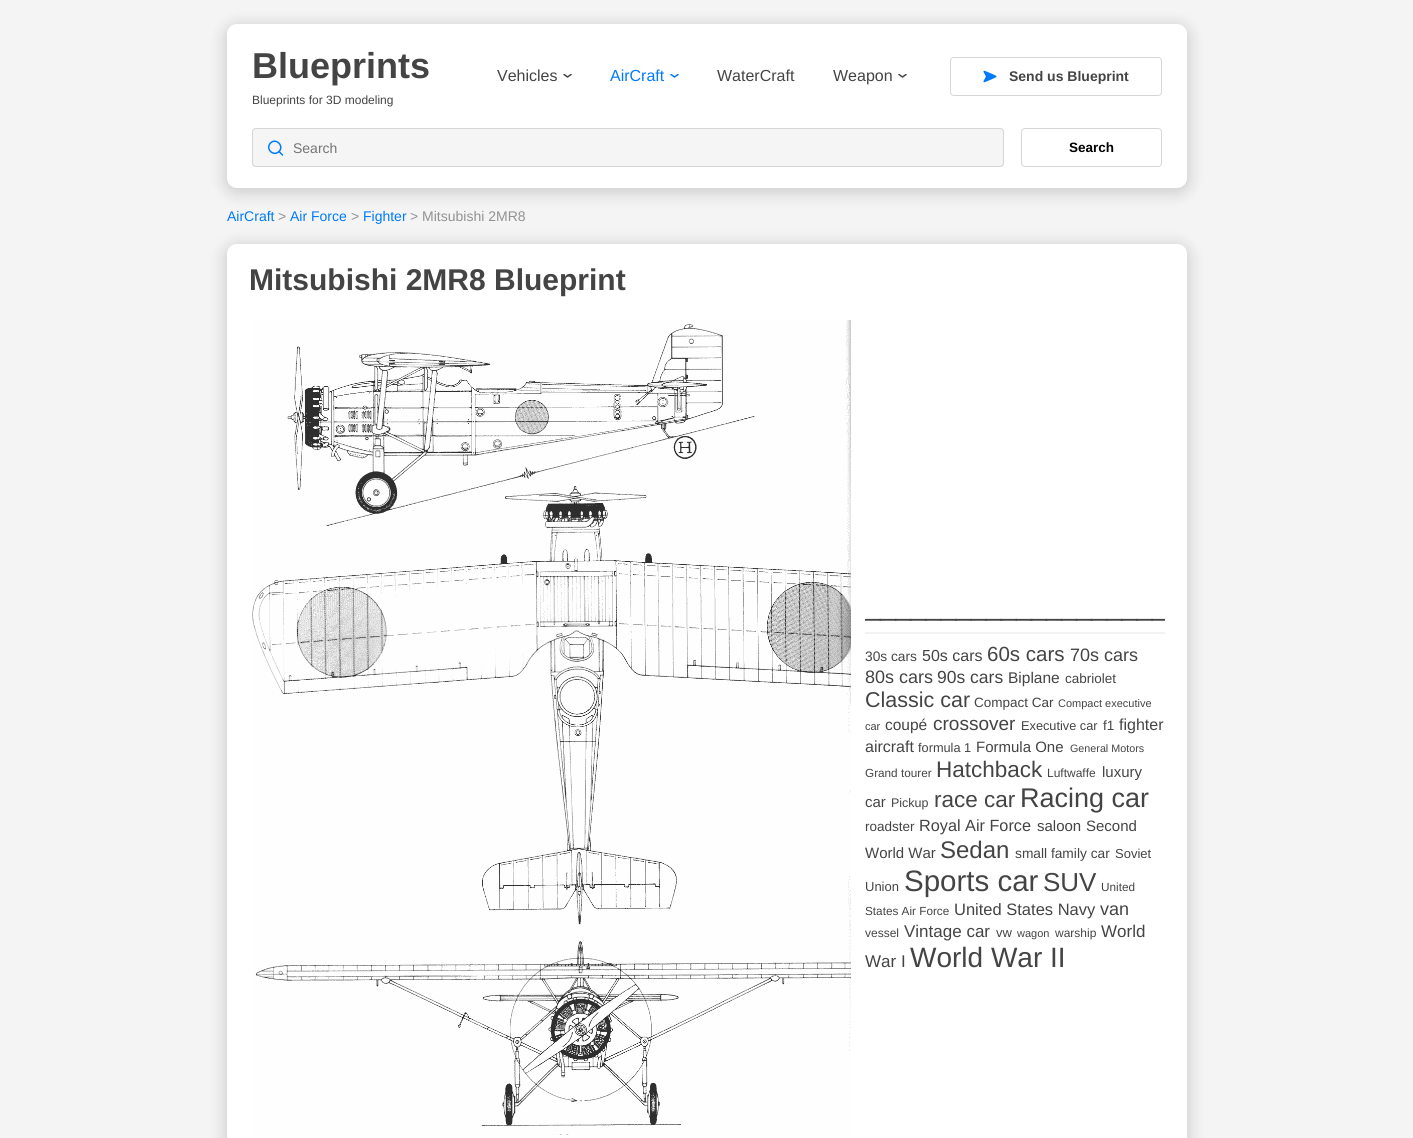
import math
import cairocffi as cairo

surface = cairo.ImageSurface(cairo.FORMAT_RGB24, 1413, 1138)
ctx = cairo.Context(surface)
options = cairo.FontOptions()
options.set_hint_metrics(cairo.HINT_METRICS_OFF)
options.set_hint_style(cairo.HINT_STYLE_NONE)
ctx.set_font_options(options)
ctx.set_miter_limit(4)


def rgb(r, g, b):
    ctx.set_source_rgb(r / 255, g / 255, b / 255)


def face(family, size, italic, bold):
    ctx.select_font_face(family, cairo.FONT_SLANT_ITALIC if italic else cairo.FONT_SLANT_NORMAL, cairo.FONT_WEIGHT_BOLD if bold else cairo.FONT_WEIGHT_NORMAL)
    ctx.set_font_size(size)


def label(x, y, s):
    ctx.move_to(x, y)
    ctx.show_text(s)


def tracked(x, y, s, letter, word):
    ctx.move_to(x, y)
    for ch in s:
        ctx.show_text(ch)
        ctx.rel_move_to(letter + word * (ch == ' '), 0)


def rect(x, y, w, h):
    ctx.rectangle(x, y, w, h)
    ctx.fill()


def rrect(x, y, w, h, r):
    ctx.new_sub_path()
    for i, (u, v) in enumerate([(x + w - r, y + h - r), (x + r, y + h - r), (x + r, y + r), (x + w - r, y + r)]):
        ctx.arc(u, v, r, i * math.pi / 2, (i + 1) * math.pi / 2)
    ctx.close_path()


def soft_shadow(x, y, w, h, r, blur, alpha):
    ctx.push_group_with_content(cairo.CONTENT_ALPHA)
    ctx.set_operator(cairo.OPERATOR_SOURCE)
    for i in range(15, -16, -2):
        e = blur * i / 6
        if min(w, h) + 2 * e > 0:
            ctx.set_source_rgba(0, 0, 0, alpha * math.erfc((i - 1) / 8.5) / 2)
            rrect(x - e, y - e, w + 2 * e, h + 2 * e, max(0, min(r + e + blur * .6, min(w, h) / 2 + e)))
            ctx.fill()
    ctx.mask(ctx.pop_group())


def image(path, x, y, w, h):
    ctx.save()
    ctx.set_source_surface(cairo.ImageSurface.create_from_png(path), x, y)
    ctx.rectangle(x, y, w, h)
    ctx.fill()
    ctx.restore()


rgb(244, 244, 244)
ctx.paint()
rgb(0, 0, 0)
soft_shadow(224, 24, 966, 170, 13, 7.5, 0.15)
rgb(255, 255, 255)
rrect(227, 24, 960, 164, 10)
ctx.fill()
face('Liberation Sans', 36, 0, 1)
rgb(68, 68, 68)
label(252, 78, 'Blueprints')
face('Liberation Sans', 12, 0, 0)
label(252, 104, 'Blueprints for 3D modeling')
face('Liberation Sans', 16, 0, 0)
label(497, 81, 'Vehicles')
ctx.save()
ctx.rectangle(563, 74, 9, 5)
ctx.clip()
ctx.new_path()
ctx.move_to(564, 74.5)
ctx.line_to(567.5, 77)
ctx.line_to(571, 74.5)
ctx.set_line_width(1.5)
ctx.set_line_cap(cairo.LINE_CAP_ROUND)
ctx.set_line_join(cairo.LINE_JOIN_ROUND)
ctx.stroke()
ctx.restore()
rgb(0, 122, 250)
label(610, 81, 'AirCraft')
ctx.save()
ctx.rectangle(670, 74, 9, 5)
ctx.clip()
ctx.new_path()
ctx.move_to(671, 74.5)
ctx.line_to(674.5, 77)
ctx.line_to(678, 74.5)
ctx.set_line_width(1.5)
ctx.set_line_cap(cairo.LINE_CAP_ROUND)
ctx.set_line_join(cairo.LINE_JOIN_ROUND)
ctx.stroke()
ctx.restore()
rgb(68, 68, 68)
label(717, 81, 'WaterCraft')
label(833, 81, 'Weapon')
ctx.save()
ctx.rectangle(898, 74, 9, 5)
ctx.clip()
ctx.new_path()
ctx.move_to(899, 74.5)
ctx.line_to(902.5, 77)
ctx.line_to(906, 74.5)
ctx.set_line_width(1.5)
ctx.set_line_cap(cairo.LINE_CAP_ROUND)
ctx.set_line_join(cairo.LINE_JOIN_ROUND)
ctx.stroke()
ctx.restore()
rrect(950.5, 57.5, 211, 38, 3.5)
rgb(213, 213, 213)
ctx.set_line_width(1)
ctx.stroke()
image('image0.png', 983, 70, 14, 13)
face('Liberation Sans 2', 14, 0, 1)
rgb(68, 68, 68)
label(1009, 81, 'Send us Blueprint')
rgb(245, 245, 245)
rrect(252, 128, 752, 39, 4)
ctx.fill()
ctx.new_path()
ctx.move_to(282.5, 155)
ctx.line_to(279, 151.5)
ctx.move_to(279, 151.5)
ctx.curve_to(284.5, 146, 276, 137.5, 270.5, 143)
ctx.curve_to(265, 149, 273.5, 157, 279, 151.5)
ctx.close_path()
rgb(0, 122, 250)
ctx.set_line_width(1.5)
ctx.set_line_cap(cairo.LINE_CAP_ROUND)
ctx.set_line_join(cairo.LINE_JOIN_ROUND)
ctx.stroke()
rrect(252.5, 128.5, 751, 38, 3.5)
rgb(213, 213, 213)
ctx.set_line_width(1)
ctx.set_line_cap(cairo.LINE_CAP_BUTT)
ctx.set_line_join(cairo.LINE_JOIN_MITER)
ctx.stroke()
face('Liberation Sans 2', 14, 0, 0)
rgb(117, 117, 117)
label(293, 153, 'Search')
rrect(1021.5, 128.5, 140, 38, 3.5)
rgb(213, 213, 213)
ctx.stroke()
face('Liberation Sans 2', 13.5, 0, 1)
rgb(0, 0, 0)
label(1069, 152, 'Search')
face('Liberation Sans', 14, 0, 0)
rgb(0, 122, 250)
label(227, 221, 'AirCraft')
rgb(146, 146, 146)
label(278, 221, '>')
rgb(0, 122, 250)
label(290, 221, 'Air Force')
rgb(146, 146, 146)
label(351, 221, '>')
rgb(0, 122, 250)
label(363, 221, 'Fighter')
rgb(146, 146, 146)
label(410, 221, '> Mitsubishi 2MR8')
rgb(0, 0, 0)
soft_shadow(224, 244, 966, 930, 13, 7.5, 0.15)
rgb(255, 255, 255)
rrect(227, 244, 960, 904, 10)
ctx.fill()
face('Liberation Sans', 30, 0, 1)
rgb(68, 68, 68)
label(249, 290, 'Mitsubishi 2MR8 Blueprint')
image('image1.png', 252, 320, 599, 815)
rgb(241, 242, 244)
rect(865, 632, 300, 2)
ctx.save()
ctx.rectangle(865, 320, 300, 664)
ctx.clip()
face('Liberation Sans', 28.75, 0, 0)
rgb(68, 68, 68)
tracked(865, 615, '____________________', -0.9, 0)
ctx.restore()
face('Liberation Sans', 13.75, 0, 0)
rgb(68, 68, 68)
label(865, 661, '30s cars')
face('Liberation Sans', 16, 0, 0)
label(922, 661, '50s cars')
face('Liberation Sans', 20.5, 0, 0)
label(987, 661, '60s cars')
face('Liberation Sans', 18, 0, 0)
label(1070, 661, '70s cars')
label(865, 683, '80s cars')
face('Liberation Sans', 17.5, 0, 0)
label(937, 683, '90s cars')
face('Liberation Sans', 15.5, 0, 0)
label(1008, 683, 'Biplane')
face('Liberation Sans', 13.5, 0, 0)
label(1065, 683, 'cabriolet')
face('Liberation Sans', 21.5, 0, 0)
label(865, 707, 'Classic car')
face('Liberation Sans', 13.5, 0, 0)
label(974, 707, 'Compact Car')
face('Liberation Sans', 11, 0, 0)
label(1058, 707, 'Compact executive')
label(865, 730, 'car')
face('Liberation Sans', 15.5, 0, 0)
label(885, 730, 'coupé')
face('Liberation Sans', 19, 0, 0)
label(933, 730, 'crossover')
face('Liberation Sans', 12.75, 0, 0)
label(1021, 730, 'Executive car')
face('Liberation Sans', 13.5, 0, 0)
label(1103, 730, 'f1')
face('Liberation Sans', 16, 0, 0)
label(1119, 730, 'fighter')
label(865, 752, 'aircraft')
face('Liberation Sans', 12.75, 0, 0)
label(918, 752, 'formula 1')
face('Liberation Sans', 15, 0, 0)
label(976, 752, 'Formula One')
face('Liberation Sans', 10.75, 0, 0)
label(1070, 752, 'General Motors')
face('Liberation Sans', 11.75, 0, 0)
label(865, 777, 'Grand tourer')
face('Liberation Sans', 22.5, 0, 0)
label(936, 777, 'Hatchback')
face('Liberation Sans', 12, 0, 0)
label(1047, 777, 'Luftwaffe')
face('Liberation Sans', 15, 0, 0)
label(1102, 777, 'luxury')
label(865, 807, 'car')
face('Liberation Sans', 12.5, 0, 0)
label(891, 807, 'Pickup')
face('Liberation Sans', 22.5, 0, 0)
label(934, 807, 'race car')
face('Liberation Sans', 27, 0, 0)
label(1020, 807, 'Racing car')
face('Liberation Sans', 13.5, 0, 0)
label(865, 831, 'roadster')
face('Liberation Sans', 16.25, 0, 0)
label(919, 831, 'Royal Air Force')
face('Liberation Sans', 15, 0, 0)
label(1037, 831, 'saloon')
label(1086, 831, 'Second')
label(865, 858, 'World War')
face('Liberation Sans', 24, 0, 0)
label(940, 858, 'Sedan')
face('Liberation Sans', 13.75, 0, 0)
label(1015, 858, 'small family car')
face('Liberation Sans', 13, 0, 0)
label(1115, 858, 'Soviet')
label(865, 891, 'Union')
face('Liberation Sans', 29.5, 0, 0)
label(904, 891, 'Sports car')
face('Liberation Sans', 26, 0, 0)
label(1043, 891, 'SUV')
face('Liberation Sans', 11.75, 0, 0)
label(1101, 891, 'United')
label(865, 915, 'States Air Force')
face('Liberation Sans', 16.5, 0, 0)
label(954, 915, 'United States Navy')
face('Liberation Sans', 18, 0, 0)
label(1100, 915, 'van')
face('Liberation Sans', 12, 0, 0)
label(865, 937, 'vessel')
face('Liberation Sans', 17, 0, 0)
label(904, 937, 'Vintage car')
face('Liberation Sans', 13, 0, 0)
label(996, 937, 'vw')
face('Liberation Sans', 11, 0, 0)
label(1017, 937, 'wagon')
face('Liberation Sans', 12, 0, 0)
label(1055, 937, 'warship')
face('Liberation Sans', 17, 0, 0)
label(1101, 937, 'World')
label(865, 967, 'War I')
face('Liberation Sans', 28, 0, 0)
label(910, 967, 'World War II')
surface.write_to_png('render.png')
